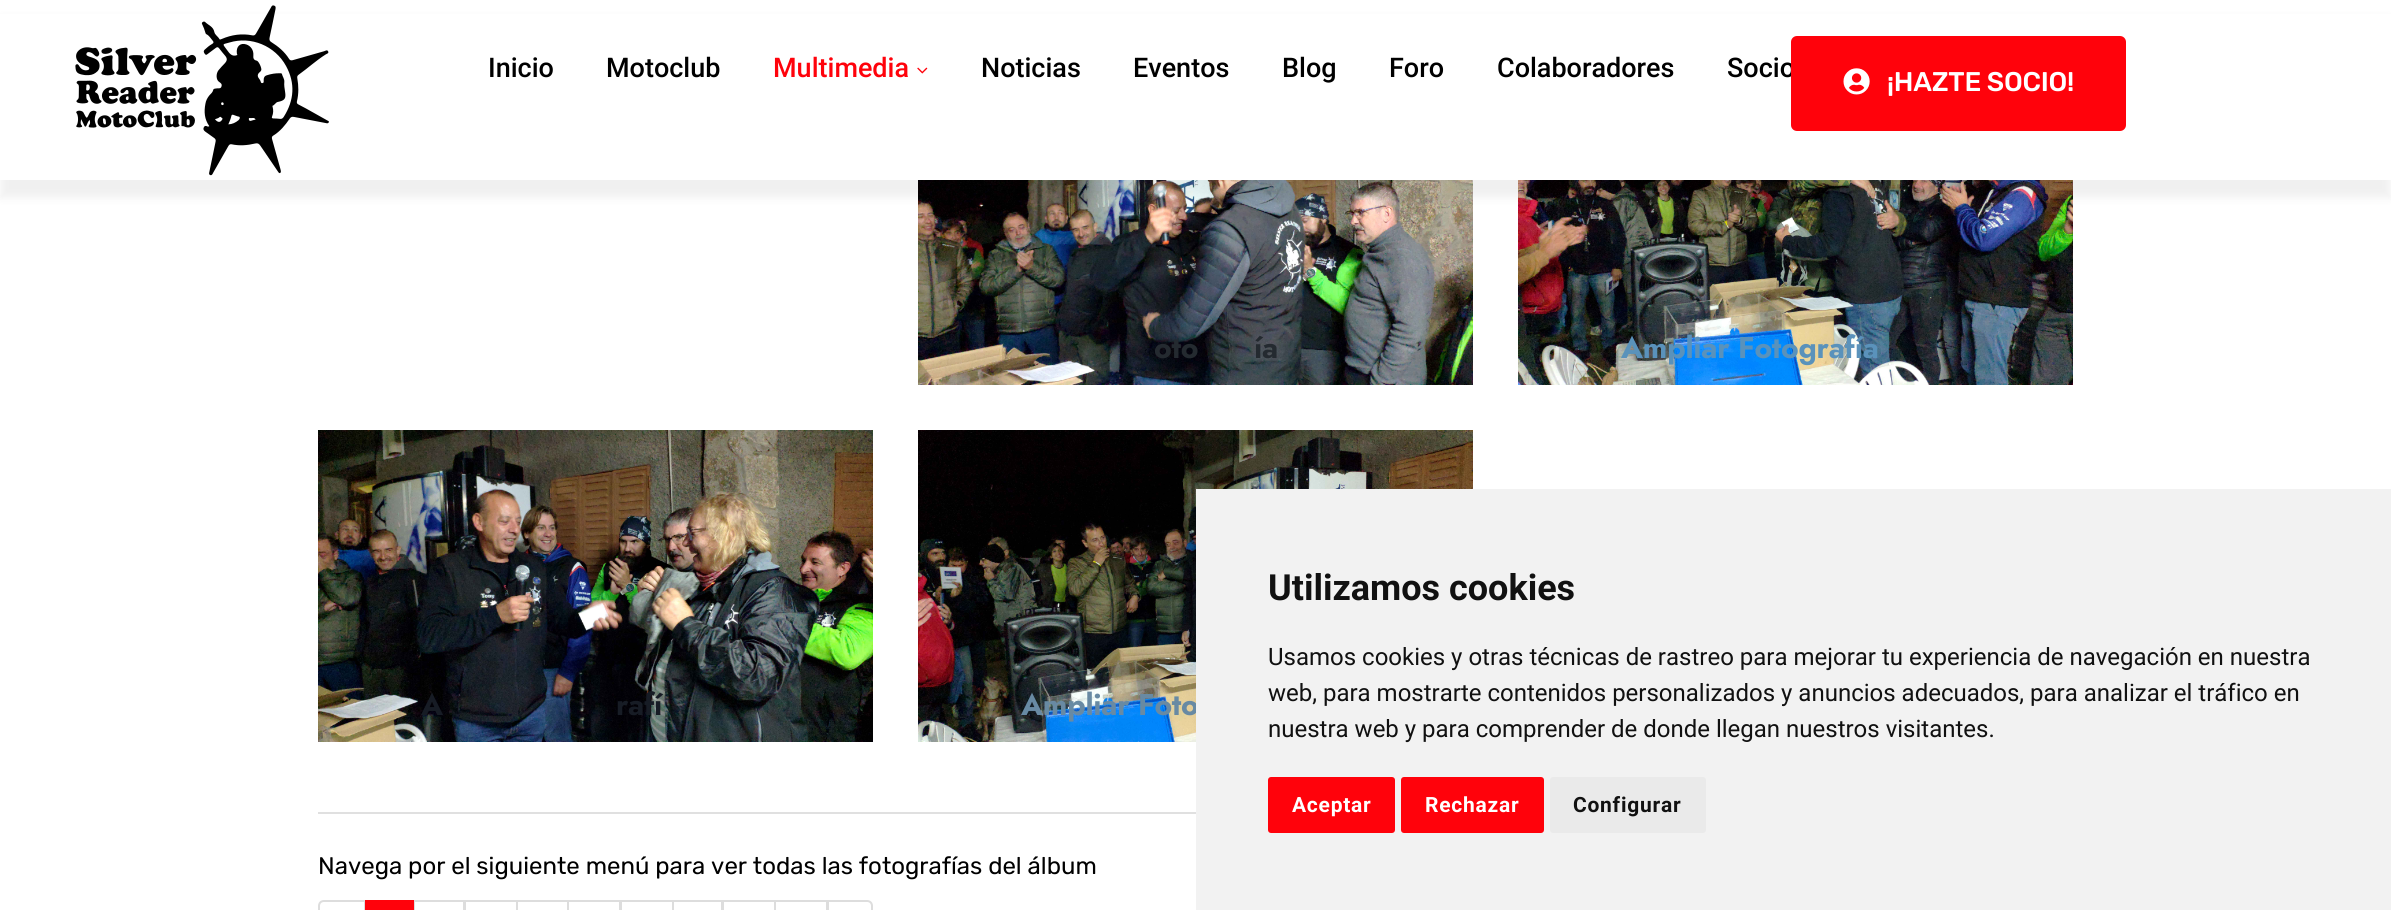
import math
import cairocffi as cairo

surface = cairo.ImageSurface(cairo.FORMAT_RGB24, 2391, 910)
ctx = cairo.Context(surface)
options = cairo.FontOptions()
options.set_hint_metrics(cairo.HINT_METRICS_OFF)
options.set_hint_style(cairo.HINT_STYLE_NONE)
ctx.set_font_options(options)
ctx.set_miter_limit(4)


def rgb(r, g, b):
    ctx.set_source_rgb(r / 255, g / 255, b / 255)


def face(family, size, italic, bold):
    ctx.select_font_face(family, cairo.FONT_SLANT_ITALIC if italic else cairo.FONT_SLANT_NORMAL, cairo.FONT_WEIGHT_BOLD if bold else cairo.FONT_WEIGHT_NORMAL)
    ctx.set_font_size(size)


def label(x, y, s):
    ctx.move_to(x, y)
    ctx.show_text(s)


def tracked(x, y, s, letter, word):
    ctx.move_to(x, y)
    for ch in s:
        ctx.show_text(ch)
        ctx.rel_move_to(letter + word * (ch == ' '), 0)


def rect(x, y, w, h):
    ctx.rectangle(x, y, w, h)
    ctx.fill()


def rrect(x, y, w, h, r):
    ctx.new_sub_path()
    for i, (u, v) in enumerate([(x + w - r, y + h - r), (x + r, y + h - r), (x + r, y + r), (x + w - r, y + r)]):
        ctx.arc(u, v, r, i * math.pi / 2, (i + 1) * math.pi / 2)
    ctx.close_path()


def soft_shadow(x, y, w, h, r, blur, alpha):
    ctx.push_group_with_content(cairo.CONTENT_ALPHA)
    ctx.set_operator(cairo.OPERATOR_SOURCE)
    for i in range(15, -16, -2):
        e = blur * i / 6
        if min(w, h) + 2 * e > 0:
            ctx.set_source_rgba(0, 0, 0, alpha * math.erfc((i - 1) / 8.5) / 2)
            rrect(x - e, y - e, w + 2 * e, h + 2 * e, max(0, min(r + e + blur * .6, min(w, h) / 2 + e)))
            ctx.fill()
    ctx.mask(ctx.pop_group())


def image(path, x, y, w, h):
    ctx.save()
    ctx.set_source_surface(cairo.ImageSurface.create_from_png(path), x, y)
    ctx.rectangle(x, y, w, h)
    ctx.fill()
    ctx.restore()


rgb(255, 255, 255)
ctx.paint()
image('image3.png', 918, 180, 555, 205)
image('image4.png', 1518, 180, 555, 205)
rgb(0, 0, 0)
soft_shadow(0, 18, 2391, 180, 0, 4.5, 0.06)
rgb(255, 255, 255)
rect(0, 14, 2391, 166)
image('image0.png', 75, 5, 254, 171)
face('Roboto Medium', 27, 0, 0)
rgb(0, 0, 0)
label(488, 77, 'Inicio')
label(606, 77, 'Motoclub')
rgb(255, 2, 11)
label(773, 77, 'Multimedia')
image('image1.png', 917, 67, 11, 7)
rgb(0, 0, 0)
label(981, 77, 'Noticias')
label(1133, 77, 'Eventos')
label(1282, 77, 'Blog')
label(1389, 77, 'Foro')
label(1497, 77, 'Colaboradores')
label(1727, 77, 'Socio')
rgb(255, 2, 11)
rrect(1791, 36, 335, 95, 6)
ctx.fill()
image('image2.png', 1843, 68, 27, 27)
face('Rubik Medium', 27, 0, 0)
rgb(255, 255, 255)
tracked(1887, 91, '¡HAZTE SOCIO!', -0.25, 0)
face('Jost', 30, 0, 1)
rgb(36, 42, 48)
tracked(1154, 358, 'oto', -0.25, 0)
tracked(1254, 358, 'ía', -0.25, 0)
rgb(90, 146, 187)
tracked(1621, 358, 'Ampliar Fotografía', -0.25, 0)
image('image5.png', 318, 430, 555, 312)
rgb(23, 28, 37)
tracked(421, 715, 'A', -0.25, 0)
tracked(616, 715, 'rafí', -0.25, 0)
image('image6.png', 918, 430, 555, 312)
rgb(104, 138, 163)
tracked(1021, 715, 'Ampliar Foto', -0.25, 0)
rgb(224, 224, 224)
rect(318, 812, 878, 2)
face('Rubik', 24, 0, 0)
rgb(0, 0, 0)
label(318, 874, 'Navega por el siguiente menú para ver todas las fotografías del álbum')
ctx.new_path()
ctx.move_to(324, 901)
ctx.line_to(365, 901)
ctx.line_to(365, 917)
ctx.line_to(324, 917)
ctx.curve_to(321, 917, 319, 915, 319, 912)
ctx.line_to(319, 906)
ctx.curve_to(319, 903, 321, 901, 324, 901)
ctx.close_path()
rgb(221, 221, 221)
ctx.stroke()
ctx.rectangle(414, 901, 50, 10)
ctx.stroke()
rgb(255, 2, 11)
rect(365, 900, 49, 10)
ctx.rectangle(465, 901, 52, 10)
rgb(221, 221, 221)
ctx.stroke()
ctx.rectangle(517, 901, 51, 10)
ctx.stroke()
ctx.rectangle(568, 901, 52, 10)
ctx.stroke()
ctx.rectangle(621, 901, 52, 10)
ctx.stroke()
ctx.rectangle(673, 901, 49, 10)
ctx.stroke()
ctx.rectangle(723, 901, 52, 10)
ctx.stroke()
ctx.rectangle(775, 901, 52, 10)
ctx.stroke()
rgb(255, 255, 255)
ctx.new_path()
ctx.move_to(828, 901)
ctx.line_to(867, 901)
ctx.curve_to(870, 901, 872, 903, 872, 906)
ctx.line_to(872, 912)
ctx.curve_to(872, 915, 870, 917, 867, 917)
ctx.line_to(828, 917)
ctx.close_path()
ctx.fill_preserve()
rgb(221, 221, 221)
ctx.stroke()
rgb(242, 242, 242)
rect(1196, 489, 1195, 421)
face('Roboto', 36, 0, 1)
rgb(17, 17, 17)
label(1268, 600, 'Utilizamos cookies')
face('Roboto', 24, 0, 0)
label(1268, 665, 'Usamos cookies y otras técnicas de rastreo para mejorar tu experiencia de navegación en nuestra')
label(1268, 701, 'web, para mostrarte contenidos personalizados y anuncios adecuados, para analizar el tráfico en')
label(1268, 737, 'nuestra web y para comprender de donde llegan nuestros visitantes.')
rgb(255, 2, 11)
rrect(1268, 777, 127, 56, 3)
ctx.fill()
face('Roboto', 21, 0, 1)
rgb(255, 255, 255)
tracked(1292, 812, 'Aceptar', 0.75, 0)
rgb(255, 2, 11)
rrect(1401, 777, 143, 56, 3)
ctx.fill()
rgb(255, 255, 255)
tracked(1425, 812, 'Rechazar', 0.75, 0)
rgb(234, 234, 234)
rrect(1550, 777, 156, 56, 3)
ctx.fill()
rgb(17, 17, 17)
tracked(1573, 812, 'Configurar', 0.75, 0)
surface.write_to_png('render.png')
